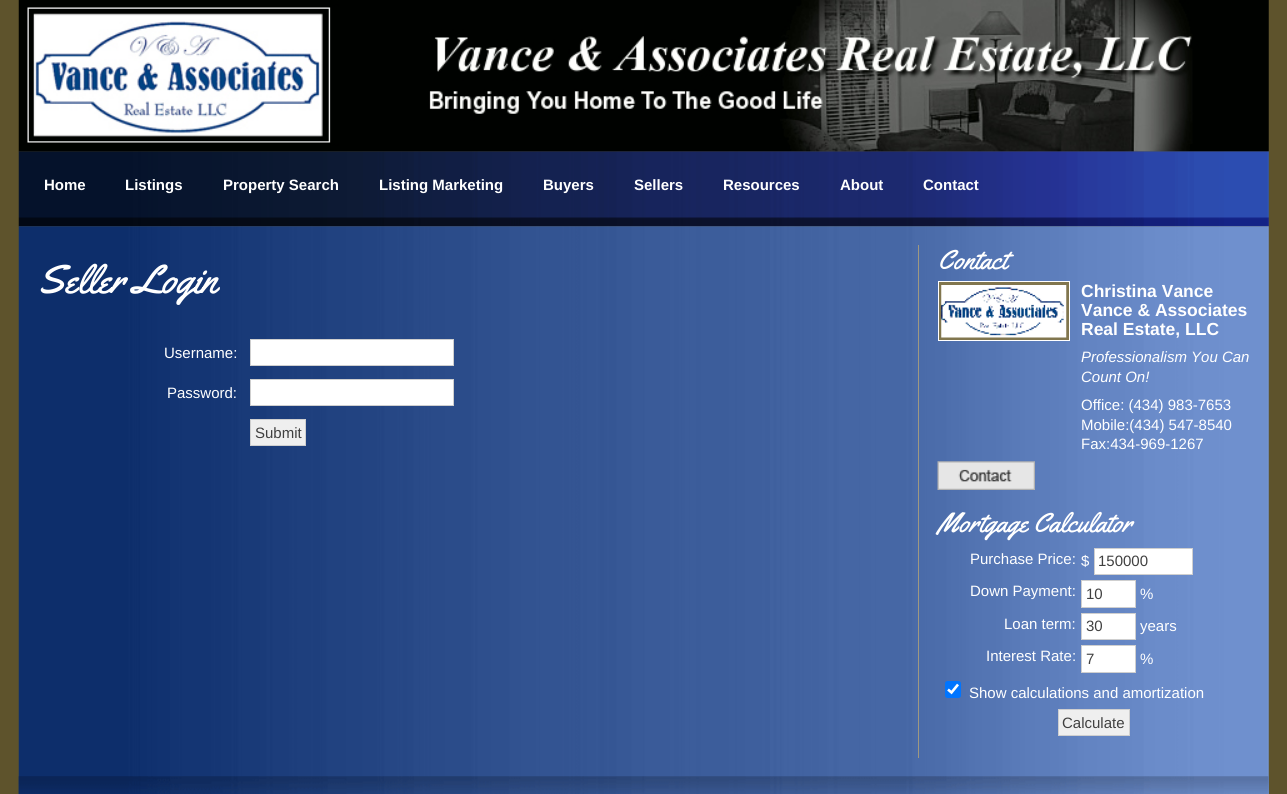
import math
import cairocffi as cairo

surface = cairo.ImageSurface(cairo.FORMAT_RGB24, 1287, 794)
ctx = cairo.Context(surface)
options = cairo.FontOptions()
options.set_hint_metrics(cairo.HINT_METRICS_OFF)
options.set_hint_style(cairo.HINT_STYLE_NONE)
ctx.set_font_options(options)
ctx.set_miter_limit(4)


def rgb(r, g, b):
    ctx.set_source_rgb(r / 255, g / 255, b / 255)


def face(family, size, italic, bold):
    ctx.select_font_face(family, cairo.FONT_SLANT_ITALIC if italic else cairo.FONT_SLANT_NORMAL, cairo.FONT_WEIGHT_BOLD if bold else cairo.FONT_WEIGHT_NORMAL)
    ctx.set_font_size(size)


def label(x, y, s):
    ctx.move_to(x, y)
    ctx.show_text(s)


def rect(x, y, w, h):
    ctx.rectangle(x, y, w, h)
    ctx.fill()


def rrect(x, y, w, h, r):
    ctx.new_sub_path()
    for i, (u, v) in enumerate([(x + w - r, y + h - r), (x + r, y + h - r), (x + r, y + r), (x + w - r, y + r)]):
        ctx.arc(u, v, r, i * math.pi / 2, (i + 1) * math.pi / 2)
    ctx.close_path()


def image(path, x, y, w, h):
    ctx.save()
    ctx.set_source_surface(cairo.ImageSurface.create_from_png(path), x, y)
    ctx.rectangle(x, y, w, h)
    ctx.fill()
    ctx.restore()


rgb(94, 83, 44)
ctx.paint()
image('image1.png', 18, 151, 1251, 76)
image('image0.png', 18, 0, 1251, 152)
face('Liberation Sans', 15, 0, 1)
rgb(255, 255, 255)
label(44, 190, 'Home')
label(125, 190, 'Listings')
label(223, 190, 'Property Search')
label(379, 190, 'Listing Marketing')
label(543, 190, 'Buyers')
label(634, 190, 'Sellers')
label(723, 190, 'Resources')
label(840, 190, 'About')
label(923, 190, 'Contact')
image('image2.png', 18, 226, 1251, 568)
face('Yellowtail', 40, 0, 0)
label(38, 293, 'Seller Login')
face('Liberation Sans', 15, 0, 0)
label(164, 358, 'Username:')
ctx.rectangle(250.5, 339.5, 203, 26)
ctx.fill_preserve()
rgb(207, 207, 207)
ctx.set_line_width(1)
ctx.stroke()
rgb(255, 255, 255)
label(167, 398, 'Password:')
ctx.rectangle(250.5, 379.5, 203, 26)
ctx.fill_preserve()
rgb(207, 207, 207)
ctx.stroke()
rgb(239, 239, 239)
ctx.rectangle(250.5, 419.5, 55, 26)
ctx.fill_preserve()
rgb(207, 207, 207)
ctx.stroke()
rgb(64, 64, 64)
label(255, 438, 'Submit')
rgb(158, 152, 129)
rect(918, 245, 1, 513)
face('Yellowtail', 27.5, 0, 0)
rgb(255, 255, 255)
label(938, 269, 'Contact')
rgb(129, 118, 78)
ctx.rectangle(938.5, 281.5, 131, 59)
ctx.fill_preserve()
rgb(255, 255, 255)
ctx.stroke()
image('image3.png', 941, 285, 126, 53)
face('Liberation Sans', 17.5, 0, 1)
label(1081, 297, 'Christina Vance')
label(1081, 316, 'Vance & Associates')
label(1081, 335, 'Real Estate, LLC')
face('Liberation Sans', 15, 1, 0)
label(1081, 362, 'Professionalism You Can')
label(1081, 382, 'Count On!')
face('Liberation Sans', 15, 0, 0)
label(1081, 410, 'Office: (434) 983-7653')
label(1081, 430, 'Mobile:(434) 547-8540')
label(1081, 449, 'Fax:434-969-1267')
image('image4.png', 937, 461, 98, 29)
face('Yellowtail', 27.5, 0, 0)
label(938, 532, 'Mortgage Calculator')
face('Liberation Sans', 15, 0, 0)
label(970, 564, 'Purchase Price:')
label(1081, 566, '$')
ctx.rectangle(1094.5, 548.5, 98, 26)
ctx.fill_preserve()
rgb(207, 207, 207)
ctx.stroke()
rgb(64, 64, 64)
label(1098, 566, '150000')
rgb(255, 255, 255)
label(970, 596, 'Down Payment:')
ctx.rectangle(1081.5, 580.5, 54, 27)
ctx.fill_preserve()
rgb(207, 207, 207)
ctx.stroke()
rgb(64, 64, 64)
label(1086, 599, '10')
rgb(255, 255, 255)
label(1140, 599, '%')
label(1004, 629, 'Loan term:')
ctx.rectangle(1081.5, 613.5, 54, 26)
ctx.fill_preserve()
rgb(207, 207, 207)
ctx.stroke()
rgb(64, 64, 64)
label(1086, 631, '30')
rgb(255, 255, 255)
label(1140, 631, 'years')
label(986, 661, 'Interest Rate:')
ctx.rectangle(1081.5, 645.5, 54, 27)
ctx.fill_preserve()
rgb(207, 207, 207)
ctx.stroke()
rgb(64, 64, 64)
label(1086, 664, '7')
rgb(255, 255, 255)
label(1140, 664, '%')
rgb(0, 117, 255)
rrect(945, 681, 16, 17, 2.5)
ctx.fill()
ctx.new_path()
ctx.move_to(948, 689.5)
ctx.line_to(951.5, 692.5)
ctx.line_to(958, 684.5)
rgb(255, 255, 255)
ctx.set_line_width(2.6)
ctx.stroke()
label(969, 698, 'Show calculations and amortization')
rgb(239, 239, 239)
ctx.rectangle(1058.5, 709.5, 71, 26)
ctx.fill_preserve()
rgb(207, 207, 207)
ctx.set_line_width(1)
ctx.stroke()
rgb(64, 64, 64)
label(1062, 728, 'Calculate')
image('image5.png', 18, 776, 1251, 18)
surface.write_to_png('render.png')
